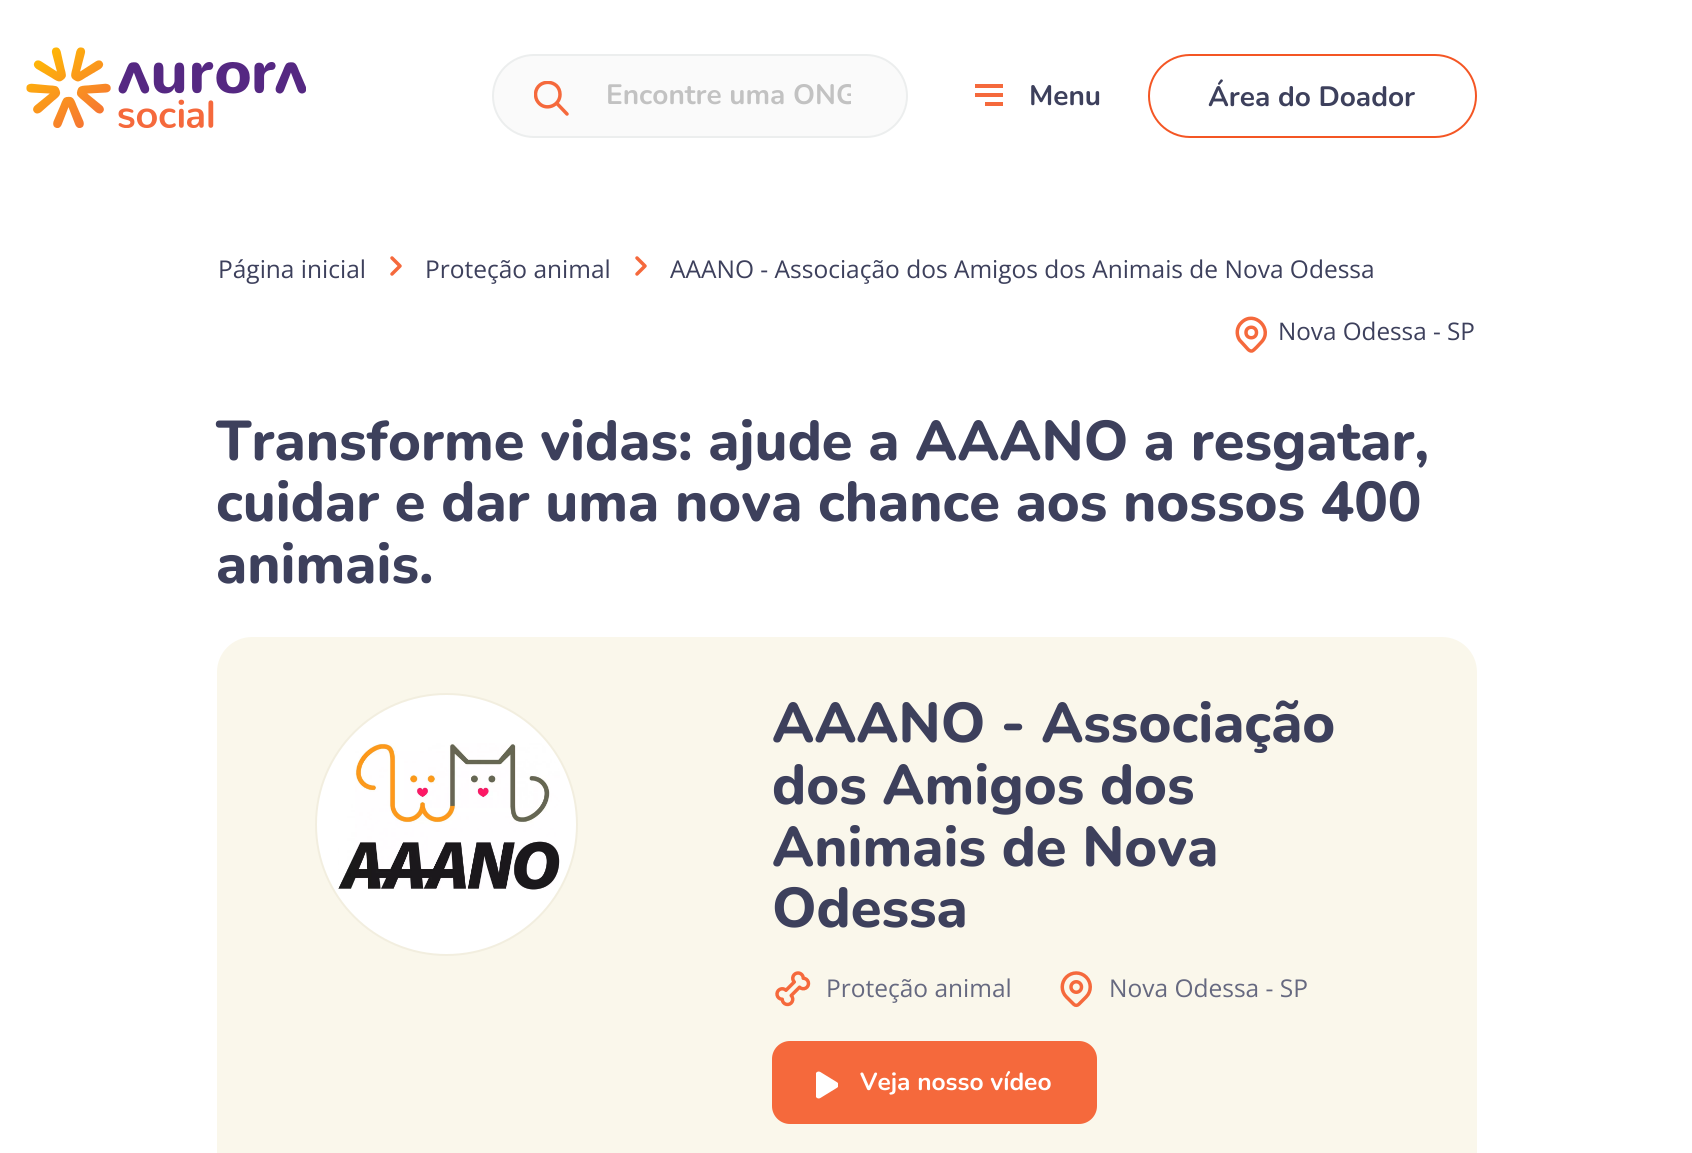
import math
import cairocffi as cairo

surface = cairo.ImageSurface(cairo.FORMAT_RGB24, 1692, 1153)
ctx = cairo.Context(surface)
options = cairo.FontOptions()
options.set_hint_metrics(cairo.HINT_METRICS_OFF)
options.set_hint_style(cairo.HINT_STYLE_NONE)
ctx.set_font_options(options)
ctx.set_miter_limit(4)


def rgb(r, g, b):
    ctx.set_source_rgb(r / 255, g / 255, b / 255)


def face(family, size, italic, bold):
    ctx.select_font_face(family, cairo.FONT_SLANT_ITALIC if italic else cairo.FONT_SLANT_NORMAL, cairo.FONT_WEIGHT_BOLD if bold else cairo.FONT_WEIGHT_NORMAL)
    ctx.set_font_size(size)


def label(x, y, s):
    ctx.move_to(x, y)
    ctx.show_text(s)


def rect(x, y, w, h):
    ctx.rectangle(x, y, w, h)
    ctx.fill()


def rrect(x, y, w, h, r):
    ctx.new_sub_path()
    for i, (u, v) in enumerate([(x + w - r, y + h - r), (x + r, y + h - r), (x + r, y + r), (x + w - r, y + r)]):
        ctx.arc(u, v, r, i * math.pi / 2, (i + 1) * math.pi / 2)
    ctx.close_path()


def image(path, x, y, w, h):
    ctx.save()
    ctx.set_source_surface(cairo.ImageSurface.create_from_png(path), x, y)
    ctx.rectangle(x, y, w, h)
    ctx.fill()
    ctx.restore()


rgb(255, 255, 255)
ctx.paint()
image('image0.png', 26, 47, 280, 81)
rgb(250, 250, 250)
rrect(493, 55, 414, 82, 41)
ctx.fill_preserve()
rgb(236, 238, 238)
ctx.stroke()
ctx.save()
ctx.rectangle(534, 81, 35, 35)
ctx.clip()
ctx.new_path()
ctx.move_to(567, 114)
ctx.line_to(556.5, 103)
ctx.close_path()
ctx.move_to(560, 94.5)
ctx.curve_to(560, 106, 545, 111.5, 538, 102)
ctx.curve_to(536, 99.5, 535.5, 96.5, 535.5, 93.5)
ctx.curve_to(537, 78, 560, 79, 560, 94.5)
ctx.close_path()
rgb(245, 105, 60)
ctx.set_line_width(3.5)
ctx.set_line_cap(cairo.LINE_CAP_ROUND)
ctx.set_line_join(cairo.LINE_JOIN_ROUND)
ctx.stroke()
ctx.restore()
ctx.save()
ctx.rectangle(606, 77, 245, 39)
ctx.clip()
face('Nunito', 28, 0, 1)
rgb(194, 194, 194)
label(606, 104, 'Encontre uma ONG')
ctx.restore()
rgb(245, 105, 60)
rect(975, 84, 28, 4)
rect(975, 93, 28, 4)
rect(985, 102, 18, 4)
face('Nunito', 28, 0, 1)
rgb(61, 64, 92)
label(1029, 105, 'Menu')
rrect(1149, 55, 327, 82, 41)
rgb(244, 86, 36)
ctx.stroke()
rgb(61, 64, 92)
label(1208, 106, 'Área do Doador')
face('Open Sans', 24.5, 0, 0)
label(218, 278, 'Página inicial')
ctx.new_path()
ctx.move_to(392, 258)
ctx.line_to(400, 266)
ctx.line_to(392, 274)
rgb(245, 105, 60)
ctx.set_line_width(3.5)
ctx.set_line_cap(cairo.LINE_CAP_ROUND)
ctx.set_line_join(cairo.LINE_JOIN_ROUND)
ctx.stroke()
rgb(61, 64, 92)
label(425, 278, 'Proteção animal')
ctx.new_path()
ctx.move_to(637, 258)
ctx.line_to(645, 266)
ctx.line_to(637, 274)
rgb(245, 105, 60)
ctx.stroke()
rgb(61, 64, 92)
label(670, 278, 'AAANO - Associação dos Amigos dos Animais de Nova Odessa')
ctx.new_path()
ctx.move_to(1261, 342.5)
ctx.curve_to(1259.5, 344, 1254, 350.5, 1252, 351)
ctx.curve_to(1249, 351.5, 1247, 348, 1245, 346)
ctx.line_to(1239.5, 340)
ctx.curve_to(1236, 334.5, 1236.5, 327, 1241.5, 322.5)
ctx.curve_to(1254.5, 309.5, 1274, 329.5, 1261, 342.5)
ctx.close_path()
ctx.move_to(1256.5, 332.5)
ctx.curve_to(1256.5, 339.5, 1246, 339.5, 1246, 332.5)
ctx.curve_to(1246, 325.5, 1256.5, 325.5, 1256.5, 332.5)
ctx.close_path()
rgb(245, 105, 60)
ctx.stroke()
face('Open Sans', 24.25, 0, 0)
rgb(61, 64, 92)
label(1278, 340, 'Nova Odessa - SP')
face('Nunito ExtraBold', 56, 0, 0)
label(216, 460, 'Transforme vidas: ajude a AAANO a resgatar,')
label(216, 521, 'cuidar e dar uma nova chance aos nossos 400')
label(216, 583, 'animais.')
rgb(250, 247, 235)
rrect(217, 637, 1260, 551, 35)
ctx.fill()
rgb(255, 255, 255)
ctx.arc(446.5, 824.5, 130.5, 0, 2 * math.pi)
ctx.fill_preserve()
rgb(242, 238, 223)
ctx.set_line_width(2)
ctx.set_line_cap(cairo.LINE_CAP_BUTT)
ctx.set_line_join(cairo.LINE_JOIN_MITER)
ctx.stroke()
image('image1.png', 338, 743, 222, 147)
rgb(61, 64, 92)
label(772, 742, 'AAANO - Associação')
label(772, 804, 'dos Amigos dos')
label(772, 866, 'Animais de Nova')
label(772, 927, 'Odessa')
image('image2.png', 775, 971, 36, 36)
face('Open Sans', 24.5, 0, 0)
rgb(102, 105, 128)
label(826, 997, 'Proteção animal')
image('image3.png', 1060, 971, 32, 37)
label(1109, 997, 'Nova Odessa - SP')
rgb(245, 105, 60)
rrect(773, 1042, 323, 81, 17)
ctx.fill_preserve()
ctx.stroke()
image('image4.png', 816, 1071, 22, 28)
face('Nunito', 24.5, 0, 1)
rgb(255, 255, 255)
label(860, 1090, 'Veja nosso vídeo')
surface.write_to_png('render.png')
